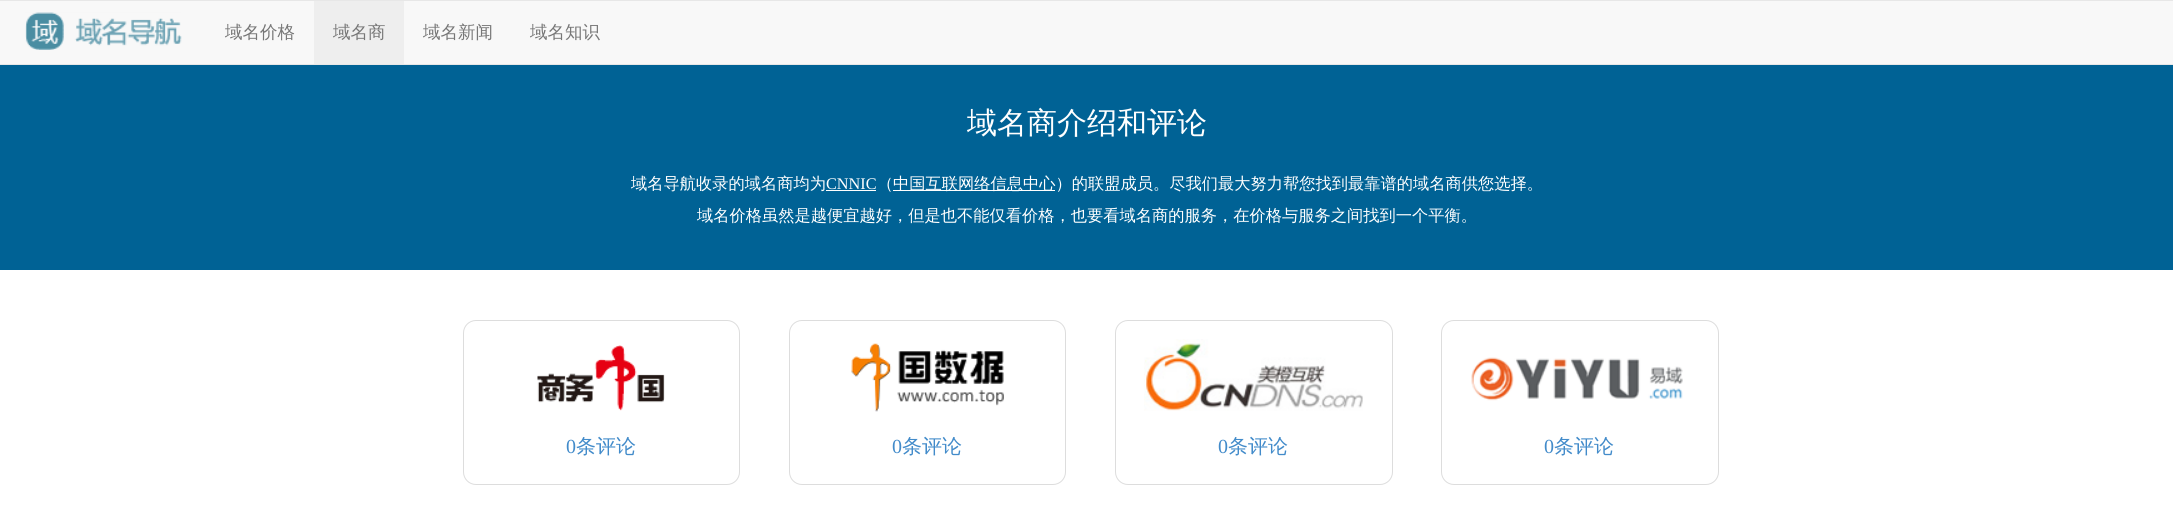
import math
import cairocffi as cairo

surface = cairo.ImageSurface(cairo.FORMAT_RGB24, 2173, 521)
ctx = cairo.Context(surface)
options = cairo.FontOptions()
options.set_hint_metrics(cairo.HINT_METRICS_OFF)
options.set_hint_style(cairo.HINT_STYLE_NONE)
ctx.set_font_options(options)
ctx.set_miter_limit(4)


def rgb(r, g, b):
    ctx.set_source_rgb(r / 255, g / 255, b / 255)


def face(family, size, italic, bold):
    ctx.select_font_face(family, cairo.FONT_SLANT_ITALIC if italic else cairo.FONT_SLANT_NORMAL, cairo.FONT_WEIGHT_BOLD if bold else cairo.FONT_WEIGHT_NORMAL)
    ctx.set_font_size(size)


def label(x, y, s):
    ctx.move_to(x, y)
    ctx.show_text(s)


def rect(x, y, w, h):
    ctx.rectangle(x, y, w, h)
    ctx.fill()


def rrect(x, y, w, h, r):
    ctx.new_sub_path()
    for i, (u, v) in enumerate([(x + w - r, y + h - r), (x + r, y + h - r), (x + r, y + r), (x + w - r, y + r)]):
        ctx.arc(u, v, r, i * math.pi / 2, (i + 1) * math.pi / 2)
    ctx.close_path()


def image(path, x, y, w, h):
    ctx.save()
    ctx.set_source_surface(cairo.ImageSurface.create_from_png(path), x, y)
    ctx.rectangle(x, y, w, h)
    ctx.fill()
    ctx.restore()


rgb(255, 255, 255)
ctx.paint()
rgb(248, 248, 248)
rect(0, 1, 2173, 63)
rgb(231, 231, 231)
rect(0, 64, 2173, 1)
image('image0.png', 25, 12, 157, 38)
rect(0, 0, 2173, 1)
face('WenQuanYi Zen Hei Medium', 17.5, 0, 0)
rgb(119, 119, 119)
label(225, 38, '域名价格')
rgb(238, 238, 238)
rect(314, 1, 90, 63)
rgb(119, 119, 119)
label(333, 38, '域名商')
label(423, 38, '域名新闻')
label(530, 38, '域名知识')
rgb(0, 98, 149)
rect(0, 65, 2173, 205)
face('WenQuanYi Zen Hei Medium', 30, 0, 0)
rgb(255, 255, 255)
label(967, 133, '域名商介绍和评论')
face('WenQuanYi Zen Hei Medium', 16.25, 0, 0)
label(631, 189, '域名导航收录的域名商均为')
face('Liberation Serif', 16.25, 0, 0)
label(826, 189, 'CNNIC')
rect(826, 190, 50, 1)
face('WenQuanYi Zen Hei Medium', 16.25, 0, 0)
label(877, 189, '（')
rect(893, 190, 162, 1)
label(893, 189, '中国互联网络信息中心）的联盟成员。尽我们最大努力帮您找到最靠谱的域名商供您选择。')
label(697, 221, '域名价格虽然是越便宜越好，但是也不能仅看价格，也要看域名商的服务，在价格与服务之间找到一个平衡。')
rrect(463.5, 320.5, 276, 164, 12.5)
rgb(221, 221, 221)
ctx.set_line_width(1)
ctx.stroke()
image('image1.png', 537, 345, 128, 66)
face('Liberation Serif', 20, 0, 0)
rgb(66, 139, 202)
label(566, 453, '0')
face('WenQuanYi Zen Hei Medium', 20, 0, 0)
label(576, 453, '条评论')
rrect(789.5, 320.5, 276, 164, 12.5)
rgb(221, 221, 221)
ctx.stroke()
image('image2.png', 851, 343, 153, 69)
face('Liberation Serif', 20, 0, 0)
rgb(66, 139, 202)
label(892, 453, '0')
face('WenQuanYi Zen Hei Medium', 20, 0, 0)
label(902, 453, '条评论')
rrect(1115.5, 320.5, 277, 164, 12.5)
rgb(221, 221, 221)
ctx.stroke()
image('image3.png', 1144, 339, 219, 72)
face('Liberation Serif', 20, 0, 0)
rgb(66, 139, 202)
label(1218, 453, '0')
face('WenQuanYi Zen Hei Medium', 20, 0, 0)
label(1228, 453, '条评论')
rrect(1441.5, 320.5, 277, 164, 12.5)
rgb(221, 221, 221)
ctx.stroke()
image('image4.png', 1471, 357, 212, 44)
face('Liberation Serif', 20, 0, 0)
rgb(66, 139, 202)
label(1544, 453, '0')
face('WenQuanYi Zen Hei Medium', 20, 0, 0)
label(1554, 453, '条评论')
surface.write_to_png('render.png')
